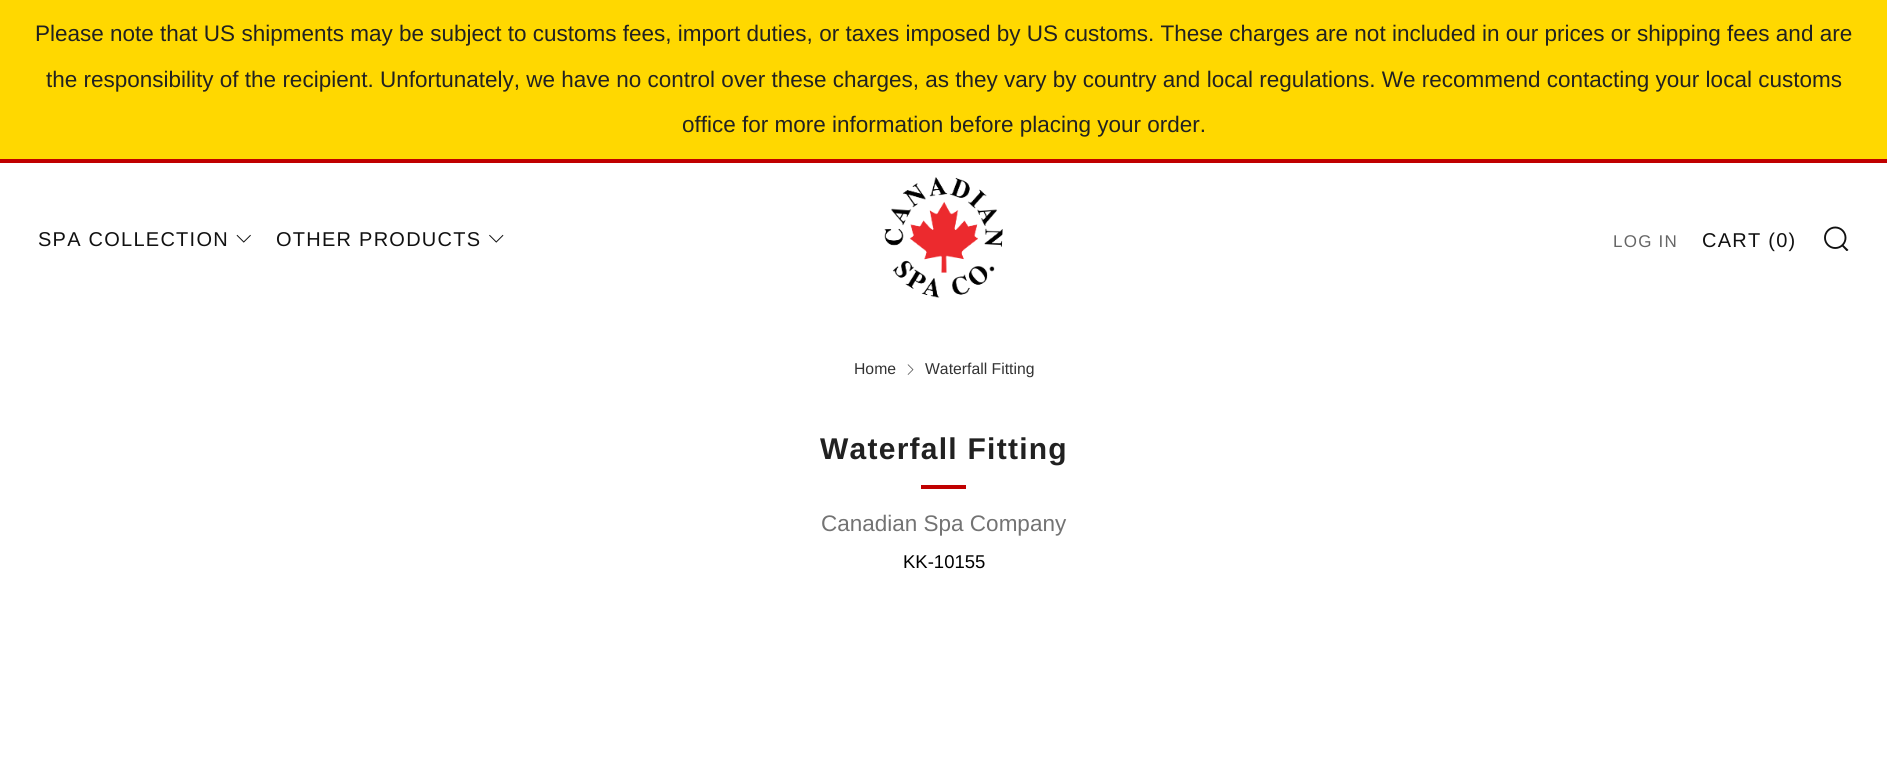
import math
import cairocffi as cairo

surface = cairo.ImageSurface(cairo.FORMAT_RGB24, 1887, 781)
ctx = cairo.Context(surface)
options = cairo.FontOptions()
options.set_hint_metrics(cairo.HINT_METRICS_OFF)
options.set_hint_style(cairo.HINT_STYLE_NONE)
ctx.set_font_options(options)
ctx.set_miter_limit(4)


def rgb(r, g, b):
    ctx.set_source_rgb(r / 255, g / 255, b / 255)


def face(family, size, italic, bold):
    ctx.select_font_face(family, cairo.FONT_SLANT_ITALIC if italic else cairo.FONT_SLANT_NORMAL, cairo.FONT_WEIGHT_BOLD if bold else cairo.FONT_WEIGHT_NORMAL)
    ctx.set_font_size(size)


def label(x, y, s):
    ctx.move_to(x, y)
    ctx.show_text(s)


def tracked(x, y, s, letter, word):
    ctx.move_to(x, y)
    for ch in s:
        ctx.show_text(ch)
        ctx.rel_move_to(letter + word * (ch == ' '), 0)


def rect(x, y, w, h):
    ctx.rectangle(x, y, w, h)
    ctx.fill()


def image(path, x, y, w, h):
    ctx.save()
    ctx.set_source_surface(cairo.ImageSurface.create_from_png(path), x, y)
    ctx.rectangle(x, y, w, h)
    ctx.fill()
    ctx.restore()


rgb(255, 255, 255)
ctx.paint()
rgb(255, 216, 0)
rect(0, 0, 1887, 159)
face('Liberation Sans', 22.5, 0, 0)
rgb(33, 33, 33)
label(35, 41, 'Please note that US shipments may be subject to customs fees, import duties, or taxes imposed by US customs. These charges are not included in our prices or shipping fees and are')
label(46, 87, 'the responsibility of the recipient. Unfortunately, we have no control over these charges, as they vary by country and local regulations. We recommend contacting your local customs')
label(682, 132, 'office for more information before placing your order.')
rgb(192, 0, 0)
rect(0, 159, 1887, 4)
image('image0.png', 884, 177, 119, 121)
face('Liberation Sans', 20, 0, 0)
rgb(17, 17, 17)
tracked(38, 246, 'SPA COLLECTION', 1.25, 0)
image('image1.png', 236, 234, 15, 9)
tracked(276, 246, 'OTHER PRODUCTS', 1.25, 0)
image('image2.png', 489, 234, 15, 9)
face('Liberation Sans', 17, 0, 0)
rgb(102, 102, 102)
tracked(1613, 247, 'LOG IN', 1.25, 0)
face('Liberation Sans', 20, 0, 0)
rgb(17, 17, 17)
tracked(1702, 247, 'CART (0)', 1.25, 0)
image('image3.png', 1824, 226, 25, 25)
face('Liberation Sans', 15.75, 0, 0)
rgb(51, 51, 51)
label(854, 374, 'Home')
image('image4.png', 907, 364, 7, 11)
label(925, 374, 'Waterfall Fitting')
face('Liberation Sans', 30, 0, 1)
rgb(33, 33, 33)
tracked(820, 459, 'Waterfall Fitting', 1.25, 0)
rgb(192, 0, 0)
rect(921, 485, 45, 4)
face('Liberation Sans', 22.5, 0, 0)
rgb(115, 115, 115)
label(821, 531, 'Canadian Spa Company')
face('Liberation Sans', 18.5, 0, 0)
rgb(0, 0, 0)
label(903, 568, 'KK-10155')
surface.write_to_png('render.png')
